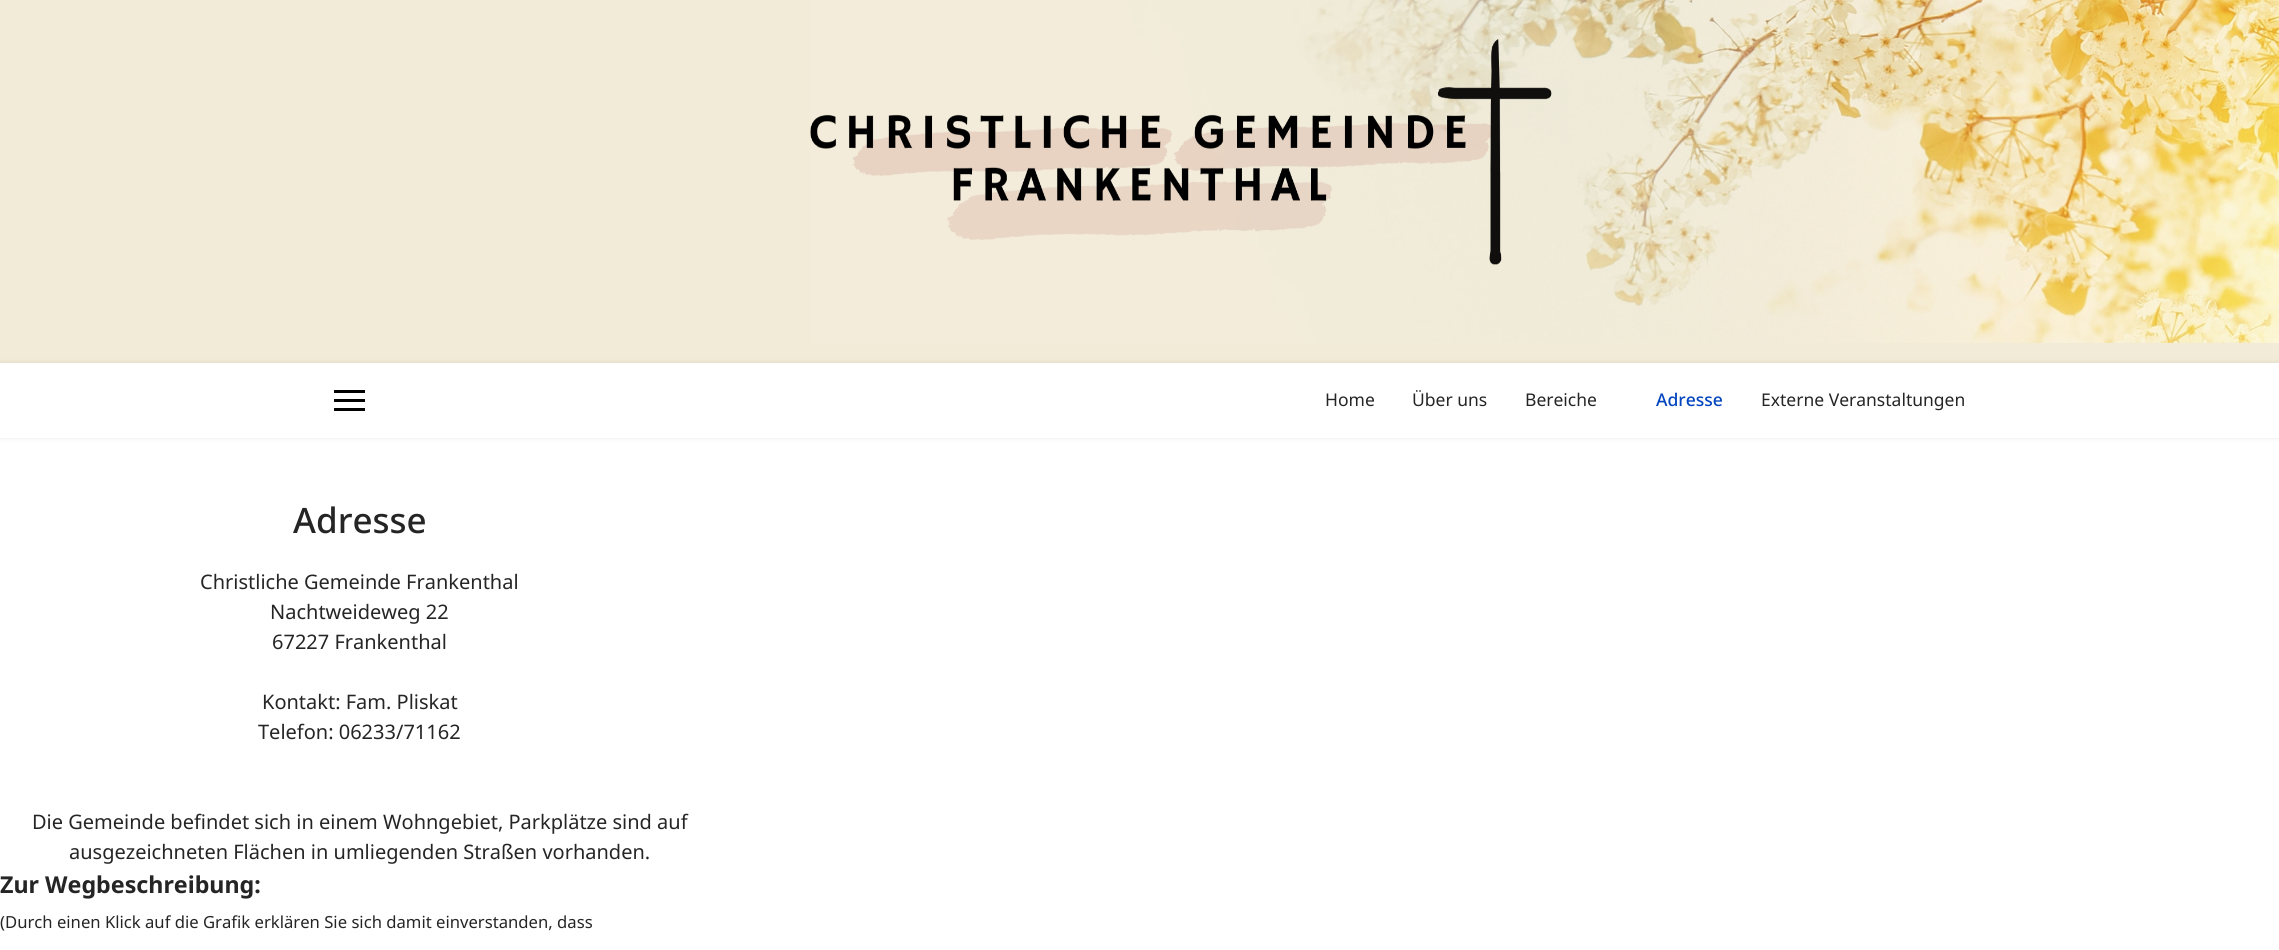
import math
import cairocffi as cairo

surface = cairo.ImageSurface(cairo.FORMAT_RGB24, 2279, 950)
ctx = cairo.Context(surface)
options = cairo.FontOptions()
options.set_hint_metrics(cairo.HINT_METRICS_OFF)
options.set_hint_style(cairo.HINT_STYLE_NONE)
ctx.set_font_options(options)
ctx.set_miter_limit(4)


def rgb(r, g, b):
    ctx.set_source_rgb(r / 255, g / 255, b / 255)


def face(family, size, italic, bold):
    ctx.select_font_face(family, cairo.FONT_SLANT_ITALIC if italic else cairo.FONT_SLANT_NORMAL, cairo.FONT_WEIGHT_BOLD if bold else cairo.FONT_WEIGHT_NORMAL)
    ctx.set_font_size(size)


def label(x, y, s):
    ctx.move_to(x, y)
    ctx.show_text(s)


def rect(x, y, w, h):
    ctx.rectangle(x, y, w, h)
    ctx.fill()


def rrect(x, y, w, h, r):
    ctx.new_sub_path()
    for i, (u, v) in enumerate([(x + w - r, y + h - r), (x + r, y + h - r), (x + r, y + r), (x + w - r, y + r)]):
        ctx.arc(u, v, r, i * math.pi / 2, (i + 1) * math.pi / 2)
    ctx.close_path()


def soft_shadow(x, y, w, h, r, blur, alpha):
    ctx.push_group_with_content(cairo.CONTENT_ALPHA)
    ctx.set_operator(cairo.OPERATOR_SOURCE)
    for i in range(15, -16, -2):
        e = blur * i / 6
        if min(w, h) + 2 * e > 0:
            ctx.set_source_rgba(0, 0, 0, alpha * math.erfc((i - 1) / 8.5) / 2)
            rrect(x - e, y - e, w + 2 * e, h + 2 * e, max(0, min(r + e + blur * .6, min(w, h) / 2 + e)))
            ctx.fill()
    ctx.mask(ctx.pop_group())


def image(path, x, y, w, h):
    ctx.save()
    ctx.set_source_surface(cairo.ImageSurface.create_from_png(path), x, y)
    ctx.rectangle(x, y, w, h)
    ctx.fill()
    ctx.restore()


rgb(255, 255, 255)
ctx.paint()
rgb(242, 235, 215)
rect(0, 0, 2279, 363)
image('image0.png', 810, 0, 1469, 343)
rgb(0, 0, 0)
soft_shadow(0, 363, 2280, 75, 0, 2.5, 0.1)
rgb(255, 255, 255)
rect(0, 363, 2279, 75)
rgb(0, 0, 0)
rect(334, 390, 31, 3)
rect(334, 399, 31, 3)
rect(334, 408, 31, 3)
face('Noto Sans', 17.5, 0, 0)
rgb(37, 37, 37)
label(1325, 406, 'Home')
label(1412, 406, 'Über uns')
label(1525, 406, 'Bereiche')
face('Noto Sans Medium', 17.5, 0, 0)
rgb(3, 69, 191)
label(1656, 406, 'Adresse')
face('Noto Sans', 17.5, 0, 0)
rgb(37, 37, 37)
label(1761, 406, 'Externe Veranstaltungen')
face('Noto Sans Medium', 35, 0, 0)
label(293, 533, 'Adresse')
face('Noto Sans', 20, 0, 0)
label(200, 589, 'Christliche Gemeinde Frankenthal')
label(270, 619, 'Nachtweideweg 22')
label(272, 649, '67227 Frankenthal')
label(262, 709, 'Kontakt: Fam. Pliskat')
label(258, 739, 'Telefon: 06233/71162')
label(32, 829, 'Die Gemeinde befindet sich in einem Wohngebiet, Parkplätze sind auf')
label(69, 859, 'ausgezeichneten Flächen in umliegenden Straßen vorhanden.')
face('Noto Sans', 23.25, 0, 1)
label(0, 893, 'Zur Wegbeschreibung:')
face('Noto Sans', 16.65, 0, 0)
label(0, 928, '(Durch einen Klick auf die Grafik erklären Sie sich damit einverstanden, dass')
surface.write_to_png('render.png')
